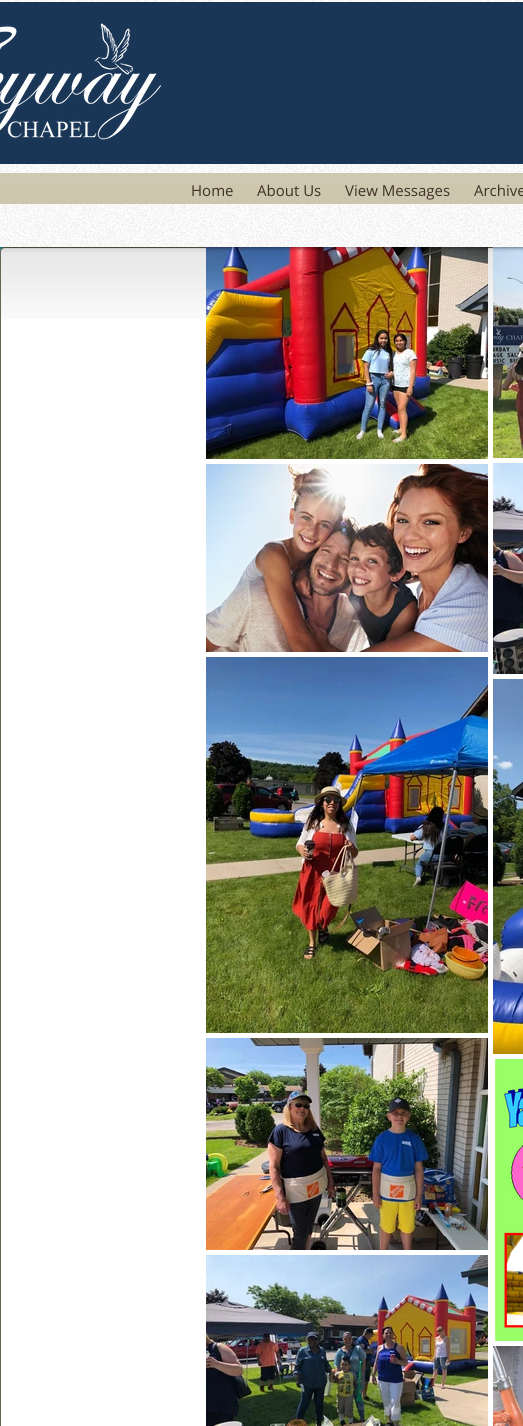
import math
import cairocffi as cairo

surface = cairo.ImageSurface(cairo.FORMAT_RGB24, 523, 1426)
ctx = cairo.Context(surface)
options = cairo.FontOptions()
options.set_hint_metrics(cairo.HINT_METRICS_OFF)
options.set_hint_style(cairo.HINT_STYLE_NONE)
ctx.set_font_options(options)
ctx.set_miter_limit(4)


def rgb(r, g, b):
    ctx.set_source_rgb(r / 255, g / 255, b / 255)


def face(family, size, italic, bold):
    ctx.select_font_face(family, cairo.FONT_SLANT_ITALIC if italic else cairo.FONT_SLANT_NORMAL, cairo.FONT_WEIGHT_BOLD if bold else cairo.FONT_WEIGHT_NORMAL)
    ctx.set_font_size(size)


def label(x, y, s):
    ctx.move_to(x, y)
    ctx.show_text(s)


def rect(x, y, w, h):
    ctx.rectangle(x, y, w, h)
    ctx.fill()


def rrect(x, y, w, h, r):
    ctx.new_sub_path()
    for i, (u, v) in enumerate([(x + w - r, y + h - r), (x + r, y + h - r), (x + r, y + r), (x + w - r, y + r)]):
        ctx.arc(u, v, r, i * math.pi / 2, (i + 1) * math.pi / 2)
    ctx.close_path()


def soft_shadow(x, y, w, h, r, blur, alpha):
    ctx.push_group_with_content(cairo.CONTENT_ALPHA)
    ctx.set_operator(cairo.OPERATOR_SOURCE)
    for i in range(15, -16, -2):
        e = blur * i / 6
        if min(w, h) + 2 * e > 0:
            ctx.set_source_rgba(0, 0, 0, alpha * math.erfc((i - 1) / 8.5) / 2)
            rrect(x - e, y - e, w + 2 * e, h + 2 * e, max(0, min(r + e + blur * .6, min(w, h) / 2 + e)))
            ctx.fill()
    ctx.mask(ctx.pop_group())


def image(path, x, y, w, h):
    ctx.save()
    ctx.set_source_surface(cairo.ImageSurface.create_from_png(path), x, y)
    ctx.rectangle(x, y, w, h)
    ctx.fill()
    ctx.restore()


rgb(0, 177, 176)
ctx.paint()
rgb(0, 0, 0)
soft_shadow(0, 248, 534, 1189, 5, 2, 0.6)
rgb(255, 255, 255)
rrect(0, 247, 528, 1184, 5)
ctx.fill()
image('image3.png', 0, 250, 493, 69)
rrect(0.5, 247.5, 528, 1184, 4.5)
rgb(105, 101, 84)
ctx.set_line_width(1)
ctx.stroke()
image('image4.png', 206, 247, 282, 212)
image('image5.png', 493, 247, 30, 211)
rgb(0, 0, 0)
soft_shadow(0, 0, 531, 247, 0, 2.5, 0.7)
rgb(255, 255, 255)
rect(0, 0, 523, 247)
image('image0.png', 0, 0, 523, 247)
rgb(26, 54, 87)
rect(0, 2, 523, 162)
image('image1.png', 0, 23, 162, 117)
rgb(190, 181, 149)
rect(0, 173, 523, 31)
image('image2.png', 0, 173, 523, 31)
face('Open Sans', 15, 0, 0)
rgb(64, 48, 39)
label(191, 196, 'Home')
label(257, 196, 'About Us')
label(345, 196, 'View Messages')
label(474, 196, 'Archive')
image('image6.png', 206, 464, 282, 188)
image('image7.png', 493, 463, 30, 211)
image('image8.png', 206, 657, 282, 376)
image('image9.png', 493, 679, 30, 375)
image('image10.png', 206, 1038, 282, 212)
image('image11.png', 495, 1059, 28, 282)
image('image12.png', 206, 1255, 282, 171)
image('image13.png', 493, 1346, 30, 80)
surface.write_to_png('render.png')
